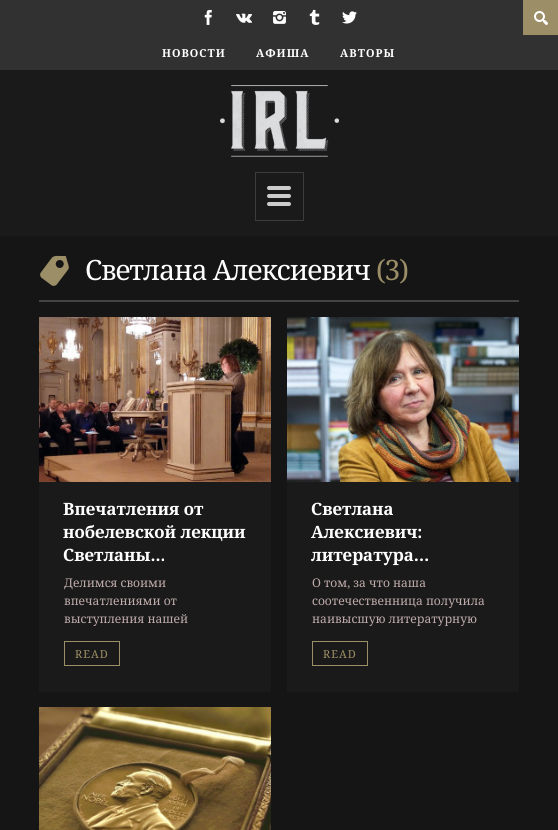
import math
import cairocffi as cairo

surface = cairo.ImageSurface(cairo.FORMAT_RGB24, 558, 830)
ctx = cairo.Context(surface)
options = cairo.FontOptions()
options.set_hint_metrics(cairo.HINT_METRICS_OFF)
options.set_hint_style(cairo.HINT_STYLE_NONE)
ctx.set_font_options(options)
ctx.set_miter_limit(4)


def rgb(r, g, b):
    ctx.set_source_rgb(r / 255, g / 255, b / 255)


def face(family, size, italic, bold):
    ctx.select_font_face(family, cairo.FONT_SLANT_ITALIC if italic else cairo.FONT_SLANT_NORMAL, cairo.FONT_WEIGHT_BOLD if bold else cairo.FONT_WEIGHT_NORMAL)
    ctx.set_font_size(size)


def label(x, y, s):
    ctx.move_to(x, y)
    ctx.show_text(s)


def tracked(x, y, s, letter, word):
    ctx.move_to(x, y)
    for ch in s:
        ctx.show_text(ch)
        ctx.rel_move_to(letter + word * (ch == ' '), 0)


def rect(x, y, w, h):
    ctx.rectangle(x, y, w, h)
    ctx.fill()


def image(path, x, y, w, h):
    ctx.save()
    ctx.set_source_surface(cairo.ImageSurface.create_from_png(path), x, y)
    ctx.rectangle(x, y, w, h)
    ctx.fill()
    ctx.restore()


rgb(21, 21, 21)
ctx.paint()
rgb(49, 49, 49)
rect(0, 0, 558, 70)
image('image0.png', 204, 9, 8, 16)
image('image1.png', 236, 13, 16, 10)
image('image2.png', 273, 11, 13, 13)
image('image3.png', 309, 9, 11, 16)
image('image4.png', 342, 11, 15, 13)
rgb(156, 142, 102)
rect(523, 0, 35, 35)
image('image5.png', 534, 11, 14, 14)
face('Noto Serif', 11, 0, 1)
rgb(255, 255, 255)
tracked(162, 57, 'НОВОСТИ', 1, 0)
tracked(256, 57, 'АФИША', 1, 0)
tracked(340, 57, 'АВТОРЫ', 1, 0)
rgb(26, 26, 26)
rect(0, 70, 558, 166)
image('image6.png', 220, 85, 119, 72)
ctx.rectangle(255.5, 172.5, 48, 48)
rgb(60, 60, 60)
ctx.set_line_width(1)
ctx.stroke()
image('image7.png', 267, 186, 24, 20)
rgb(68, 68, 68)
rect(39, 300, 480, 2)
image('image8.png', 40, 255, 29, 31)
face('Noto Serif', 28, 0, 0)
rgb(255, 255, 255)
tracked(85, 280, 'Светлана Алексиевич', -1.1, 0)
rgb(156, 142, 102)
tracked(376, 280, '(3)', -1.1, 0)
rgb(26, 26, 26)
rect(39, 482, 232, 210)
image('image9.png', 39, 317, 232, 165)
face('Noto Serif', 17, 0, 1)
rgb(255, 255, 255)
label(63, 515, 'Впечатления от')
label(63, 538, 'нобелевской лекции')
label(63, 561, 'Светланы...')
face('Noto Serif', 12, 0, 0)
rgb(192, 171, 171)
label(64, 587, 'Делимся своими')
label(64, 605, 'впечатлениями от')
label(64, 623, 'выступления нашей')
ctx.rectangle(64.5, 641.5, 55, 24)
rgb(156, 142, 102)
ctx.stroke()
face('Noto Serif', 11, 0, 0)
tracked(75, 658, 'READ', 1, 0)
rgb(26, 26, 26)
rect(287, 482, 232, 210)
image('image10.png', 287, 317, 232, 165)
face('Noto Serif', 17, 0, 1)
rgb(255, 255, 255)
label(311, 515, 'Светлана')
label(311, 538, 'Алексиевич:')
label(311, 561, 'литература…')
face('Noto Serif', 12, 0, 0)
rgb(192, 171, 171)
label(312, 587, 'О том, за что наша')
label(312, 605, 'соотечественница получила')
label(312, 623, 'наивысшую литературную')
ctx.rectangle(312.5, 641.5, 55, 24)
rgb(156, 142, 102)
ctx.stroke()
face('Noto Serif', 11, 0, 0)
tracked(323, 658, 'READ', 1, 0)
image('image11.png', 39, 707, 232, 123)
surface.write_to_png('render.png')
